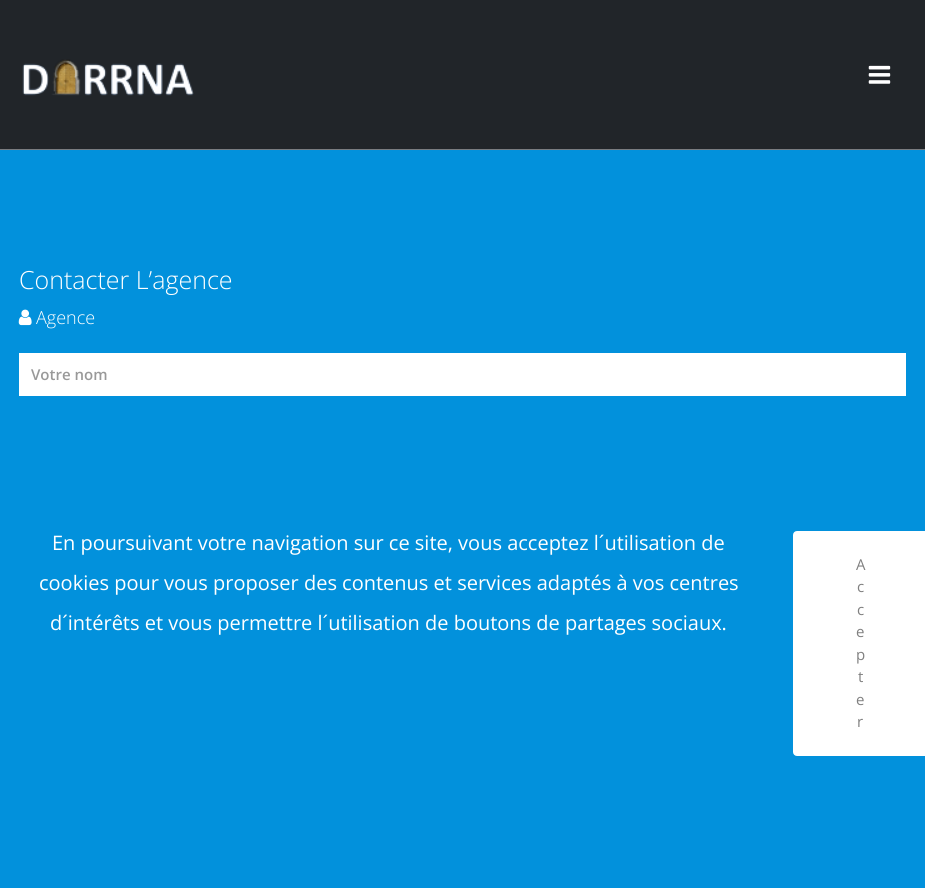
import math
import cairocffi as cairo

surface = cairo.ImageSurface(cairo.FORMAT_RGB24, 925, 888)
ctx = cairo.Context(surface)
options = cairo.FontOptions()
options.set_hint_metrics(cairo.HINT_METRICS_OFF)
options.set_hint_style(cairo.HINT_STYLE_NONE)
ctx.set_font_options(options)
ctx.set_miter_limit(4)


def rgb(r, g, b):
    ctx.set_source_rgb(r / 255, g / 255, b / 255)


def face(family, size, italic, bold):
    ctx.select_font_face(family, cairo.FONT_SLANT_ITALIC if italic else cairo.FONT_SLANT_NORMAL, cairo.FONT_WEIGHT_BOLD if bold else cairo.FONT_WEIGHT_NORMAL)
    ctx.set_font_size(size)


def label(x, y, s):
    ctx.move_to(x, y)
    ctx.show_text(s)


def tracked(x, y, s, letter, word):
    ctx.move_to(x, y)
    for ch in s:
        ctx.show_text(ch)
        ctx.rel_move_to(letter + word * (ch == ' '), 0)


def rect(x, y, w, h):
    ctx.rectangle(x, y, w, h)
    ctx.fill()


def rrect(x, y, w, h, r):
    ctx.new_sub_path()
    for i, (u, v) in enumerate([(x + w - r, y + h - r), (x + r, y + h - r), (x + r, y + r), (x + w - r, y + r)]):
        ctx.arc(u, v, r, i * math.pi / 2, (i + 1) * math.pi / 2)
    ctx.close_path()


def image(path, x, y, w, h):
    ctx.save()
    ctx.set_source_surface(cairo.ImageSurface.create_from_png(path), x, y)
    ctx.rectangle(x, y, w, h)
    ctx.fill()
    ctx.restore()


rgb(2, 145, 220)
ctx.paint()
rgb(33, 37, 41)
rect(0, 0, 925, 149)
rgb(122, 124, 127)
rect(0, 149, 925, 1)
image('image0.png', 22, 59, 172, 37)
image('image1.png', 868, 65, 23, 19)
face('Open Sans Light', 25, 0, 0)
rgb(255, 255, 255)
label(19, 289, 'Contacter L’agence')
image('image2.png', 18, 309, 14, 17)
face('Open Sans Light', 18, 0, 0)
label(36, 324, 'Agence')
rect(19, 353, 887, 43)
face('Open Sans SemiBold', 15, 0, 0)
rgb(153, 153, 153)
label(31, 380, 'Votre nom')
face('Open Sans', 20, 0, 0)
rgb(255, 255, 255)
label(52, 550, 'En poursuivant votre navigation sur ce site, vous acceptez l´utilisation de')
label(39, 590, 'cookies pour vous proposer des contenus et services adaptés à vos centres')
label(50, 630, 'd´intérêts et vous permettre l´utilisation de boutons de partages sociaux.')
rrect(794.5, 532.5, 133, 222, 2.5)
ctx.fill_preserve()
ctx.set_line_width(3)
ctx.stroke()
face('Open Sans', 15, 0, 0)
rgb(128, 128, 128)
tracked(856, 570, 'A', 1, 0)
tracked(857, 592, 'c', 1, 0)
tracked(857, 615, 'c', 1, 0)
tracked(856, 637, 'e', 1, 0)
tracked(856, 660, 'p', 1, 0)
tracked(858, 682, 't', 1, 0)
tracked(856, 705, 'e', 1, 0)
tracked(857, 727, 'r', 1, 0)
surface.write_to_png('render.png')
